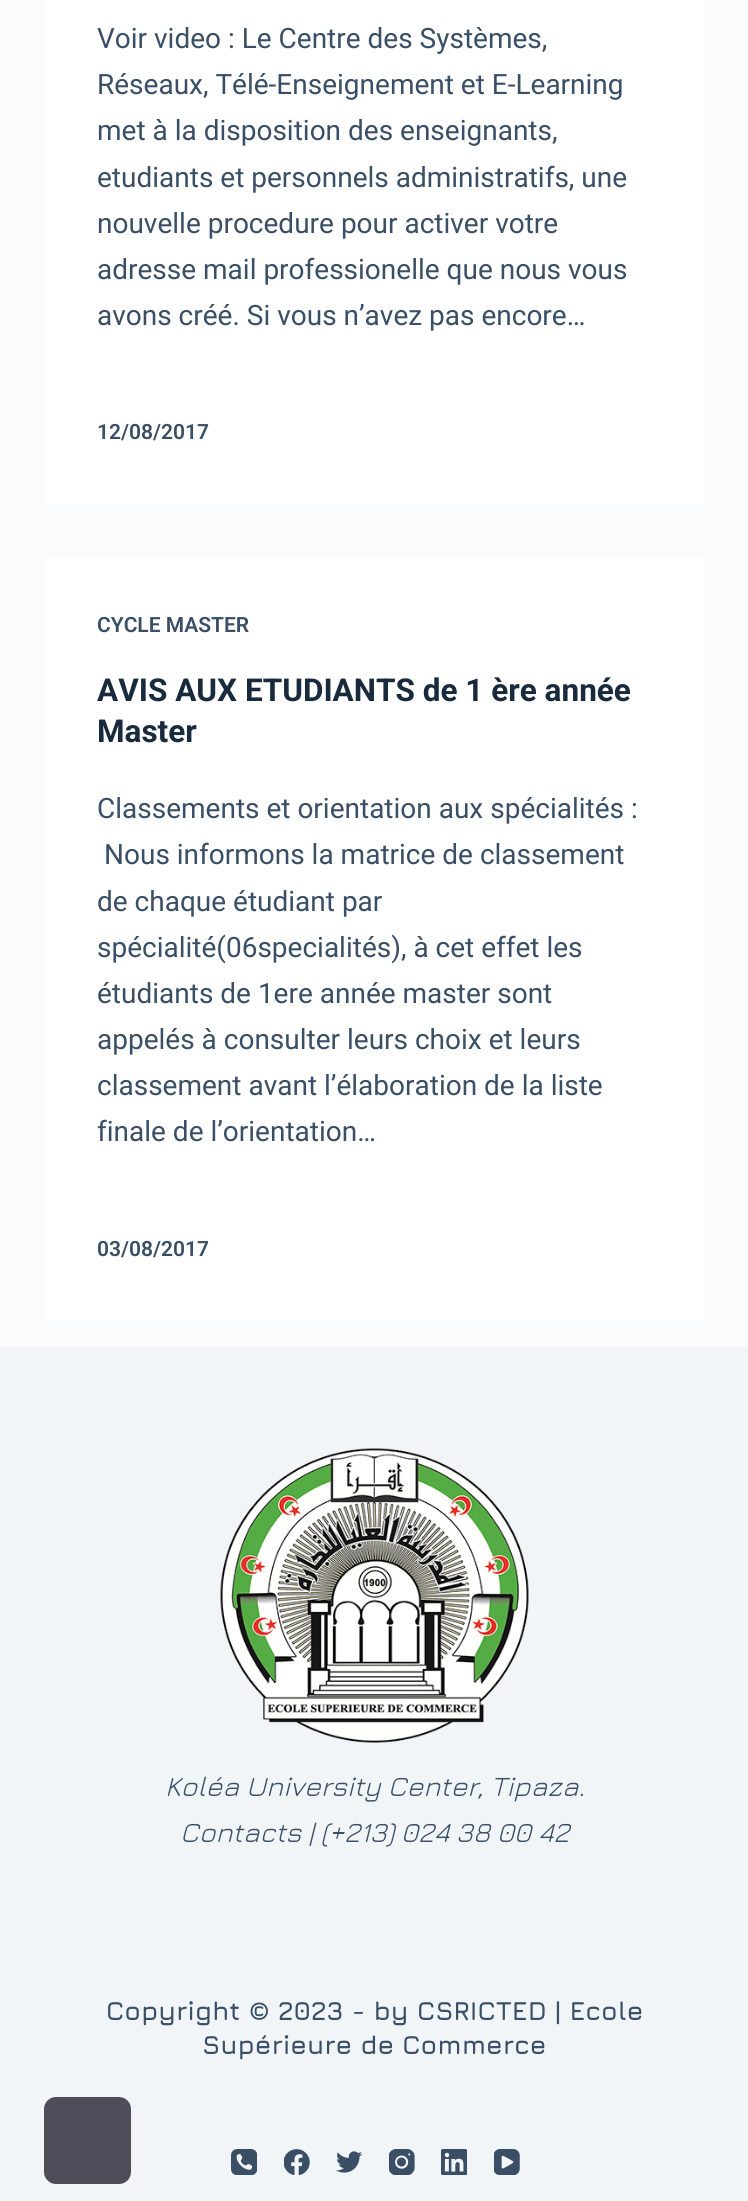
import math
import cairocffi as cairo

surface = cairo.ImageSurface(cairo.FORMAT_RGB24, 748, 2201)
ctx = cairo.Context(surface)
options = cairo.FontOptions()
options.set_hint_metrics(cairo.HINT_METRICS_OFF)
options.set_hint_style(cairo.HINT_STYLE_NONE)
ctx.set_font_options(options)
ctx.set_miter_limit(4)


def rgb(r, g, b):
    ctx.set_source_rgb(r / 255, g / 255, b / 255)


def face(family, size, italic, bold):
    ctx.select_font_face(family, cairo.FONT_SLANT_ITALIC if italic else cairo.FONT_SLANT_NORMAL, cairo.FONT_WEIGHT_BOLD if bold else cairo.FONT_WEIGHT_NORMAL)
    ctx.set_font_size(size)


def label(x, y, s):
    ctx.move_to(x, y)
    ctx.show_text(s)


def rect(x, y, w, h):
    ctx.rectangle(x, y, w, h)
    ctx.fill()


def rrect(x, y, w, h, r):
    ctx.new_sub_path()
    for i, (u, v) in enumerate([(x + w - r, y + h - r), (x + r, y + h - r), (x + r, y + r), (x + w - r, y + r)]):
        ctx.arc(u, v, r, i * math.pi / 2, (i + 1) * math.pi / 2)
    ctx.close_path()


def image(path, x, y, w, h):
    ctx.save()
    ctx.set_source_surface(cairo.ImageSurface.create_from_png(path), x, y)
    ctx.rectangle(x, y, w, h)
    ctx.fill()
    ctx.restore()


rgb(250, 251, 252)
ctx.paint()
rgb(255, 255, 255)
rect(46, 0, 658, 504)
face('Roboto', 28, 0, 0)
rgb(58, 79, 102)
label(97, 48, 'Voir video : Le Centre des Systèmes,')
label(97, 94, 'Réseaux, Télé-Enseignement et E-Learning')
label(97, 140, 'met à la disposition des enseignants,')
label(97, 187, 'etudiants et personnels administratifs, une')
label(97, 233, 'nouvelle procedure pour activer votre')
label(97, 279, 'adresse mail professionelle que nous vous')
label(97, 325, 'avons créé. Si vous n’avez pas encore…')
face('Roboto SemiBold', 21, 0, 0)
label(97, 439, '12/08/2017')
rgb(255, 255, 255)
rect(46, 557, 658, 763)
rgb(58, 79, 102)
label(97, 632, 'CYCLE MASTER')
face('Roboto', 31.5, 0, 1)
rgb(25, 42, 61)
label(97, 701, 'AVIS AUX ETUDIANTS de 1 ère année')
label(97, 742, 'Master')
face('Roboto', 28, 0, 0)
rgb(58, 79, 102)
label(97, 818, 'Classements et orientation aux spécialités :')
label(104, 864, 'Nous informons la matrice de classement')
label(97, 911, 'de chaque étudiant par')
label(97, 957, 'spécialité(06specialités), à cet effet les')
label(97, 1003, 'étudiants de 1ere année master sont')
label(97, 1049, 'appelés à consulter leurs choix et leurs')
label(97, 1095, 'classement avant l’élaboration de la liste')
label(97, 1141, 'finale de l’orientation…')
face('Roboto SemiBold', 21, 0, 0)
label(97, 1256, '03/08/2017')
rgb(242, 245, 247)
rect(0, 1346, 748, 855)
image('image0.png', 220, 1448, 309, 295)
face('Jura Light', 28, 1, 0)
rgb(58, 79, 102)
label(165, 1796, 'Koléa University Center, Tipaza.')
label(180, 1842, 'Contacts | (+213) 024 38 00 42')
face('Jura', 26.25, 0, 1)
label(106, 2020, 'Copyright © 2023 - by CSRICTED | Ecole')
label(202, 2054, 'Supérieure de Commerce')
image('image1.png', 231, 2149, 26, 26)
image('image2.png', 284, 2149, 26, 26)
image('image3.png', 336, 2151, 26, 22)
image('image4.png', 389, 2149, 26, 26)
image('image5.png', 441, 2149, 26, 26)
image('image6.png', 494, 2149, 26, 26)
rgb(80, 77, 91)
rrect(44, 2097, 87, 87, 12)
ctx.fill()
surface.write_to_png('render.png')
